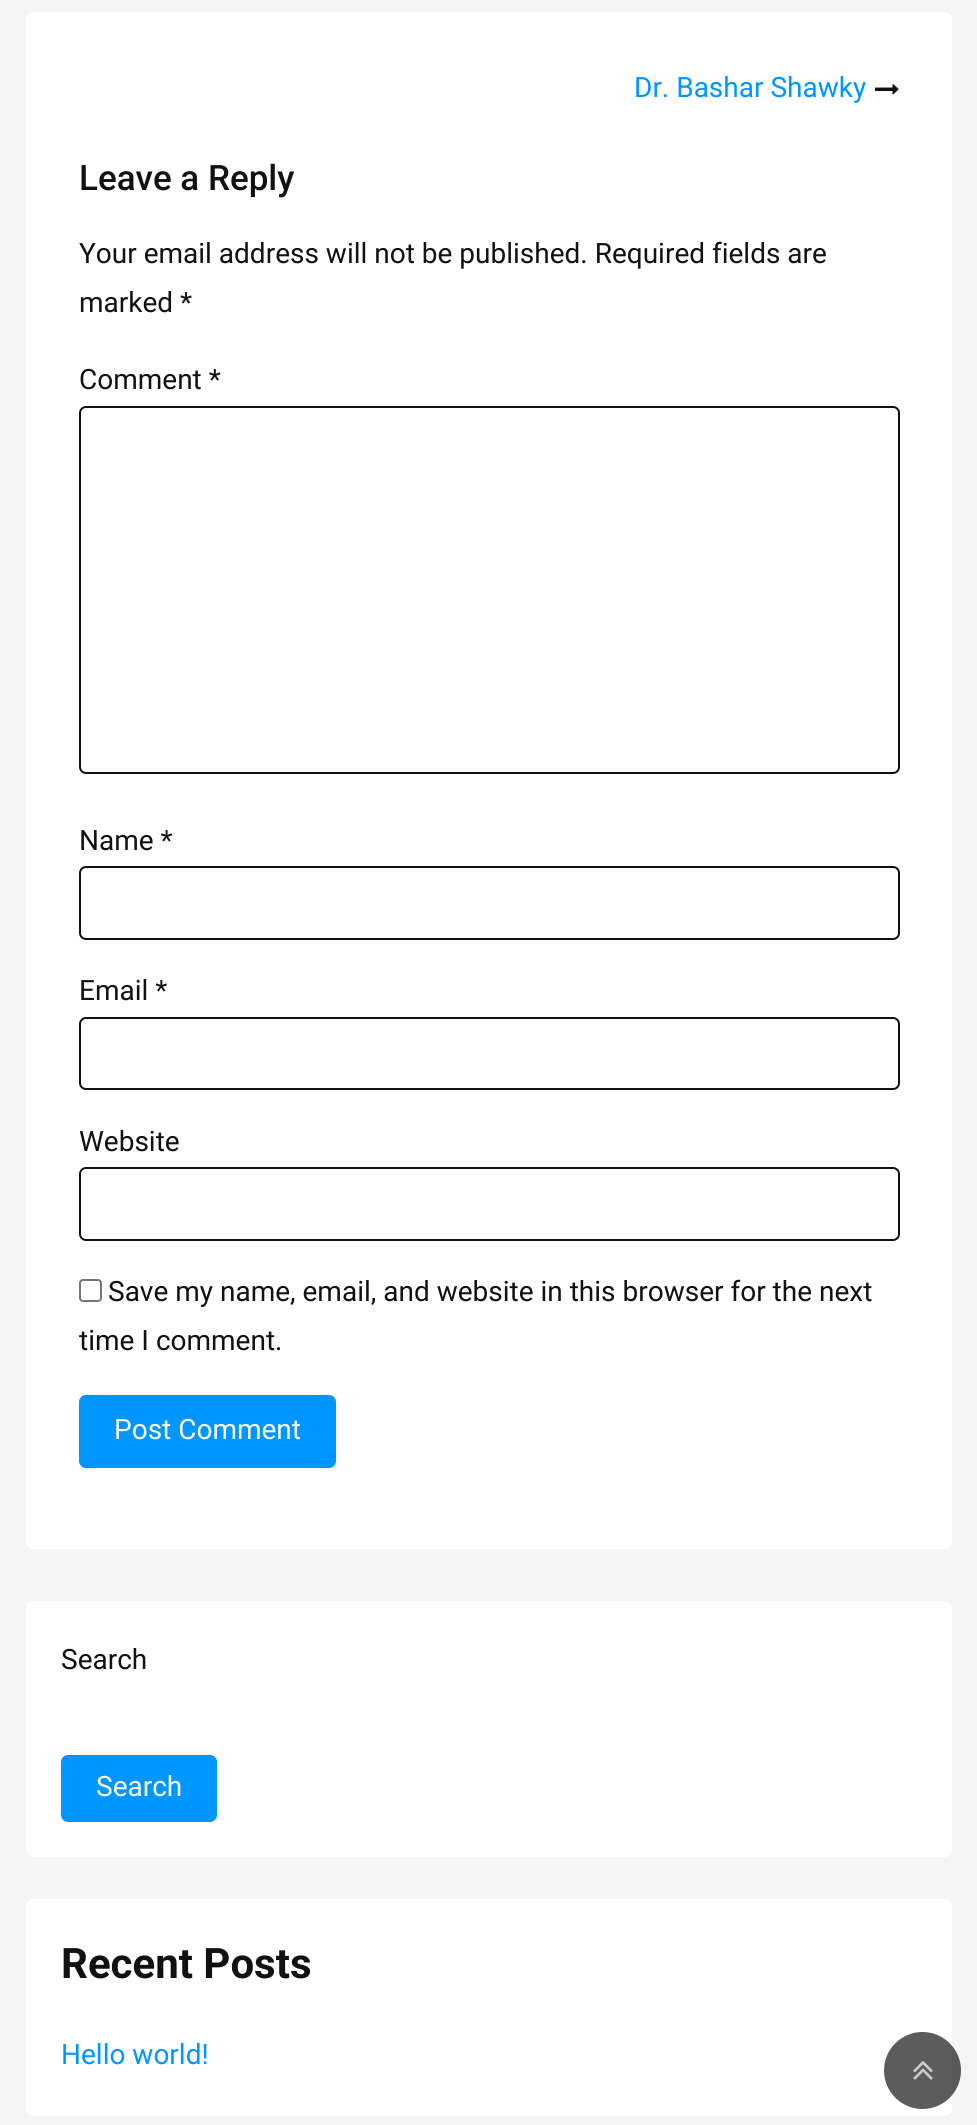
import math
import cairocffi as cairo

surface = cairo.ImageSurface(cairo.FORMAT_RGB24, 977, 2125)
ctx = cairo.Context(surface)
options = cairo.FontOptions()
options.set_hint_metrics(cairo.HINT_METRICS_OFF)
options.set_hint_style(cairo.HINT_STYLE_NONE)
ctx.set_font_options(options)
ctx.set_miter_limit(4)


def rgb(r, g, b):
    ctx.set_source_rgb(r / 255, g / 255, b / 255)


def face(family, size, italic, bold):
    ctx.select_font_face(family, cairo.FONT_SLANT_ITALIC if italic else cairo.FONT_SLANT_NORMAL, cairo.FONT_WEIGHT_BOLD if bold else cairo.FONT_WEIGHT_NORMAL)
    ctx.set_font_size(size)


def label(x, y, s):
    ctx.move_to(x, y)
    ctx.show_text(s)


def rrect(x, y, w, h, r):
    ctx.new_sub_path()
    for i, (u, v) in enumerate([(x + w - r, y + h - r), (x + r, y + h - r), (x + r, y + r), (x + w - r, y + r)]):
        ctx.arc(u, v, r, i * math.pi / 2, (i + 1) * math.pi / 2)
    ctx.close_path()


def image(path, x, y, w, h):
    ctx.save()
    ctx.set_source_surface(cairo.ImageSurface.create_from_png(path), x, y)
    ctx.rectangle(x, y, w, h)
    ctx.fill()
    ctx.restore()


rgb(245, 245, 245)
ctx.paint()
rgb(255, 255, 255)
rrect(26, 12, 926, 1537, 7)
ctx.fill()
face('Roboto', 28, 0, 0)
rgb(0, 150, 255)
label(634, 97, 'Dr. Bashar Shawky')
image('image0.png', 875, 84, 24, 11)
face('Roboto Medium', 35, 0, 0)
rgb(17, 17, 17)
label(79, 190, 'Leave a Reply')
face('Roboto', 28, 0, 0)
label(79, 263, 'Your email address will not be published. Required fields are')
label(79, 312, 'marked *')
label(79, 389, 'Comment *')
rrect(80, 407, 819, 366, 6)
ctx.stroke()
label(79, 850, 'Name *')
rrect(80, 867, 819, 72, 6)
ctx.stroke()
label(79, 1000, 'Email *')
rrect(80, 1018, 819, 71, 6)
ctx.stroke()
label(79, 1151, 'Website')
rrect(80, 1168, 819, 72, 6)
ctx.stroke()
rrect(80, 1280, 21, 21, 3)
rgb(118, 118, 118)
ctx.stroke()
rgb(17, 17, 17)
label(108, 1301, 'Save my name, email, and website in this browser for the next')
label(79, 1350, 'time I comment.')
rgb(0, 150, 255)
rrect(79, 1395, 257, 73, 7)
ctx.fill()
rgb(255, 255, 255)
label(114, 1439, 'Post Comment')
rrect(26, 1601, 926, 256, 7)
ctx.fill()
rgb(17, 17, 17)
label(61, 1669, 'Search')
rgb(0, 150, 255)
rrect(61, 1755, 156, 67, 7)
ctx.fill()
rgb(255, 255, 255)
label(96, 1796, 'Search')
rrect(26, 1899, 926, 217, 7)
ctx.fill()
face('Roboto', 42, 0, 1)
rgb(17, 17, 17)
label(61, 1978, 'Recent Posts')
face('Roboto', 28, 0, 0)
rgb(0, 150, 255)
label(61, 2064, 'Hello world!')
ctx.set_source_rgba(0.067, 0.067, 0.067, 0.68)
ctx.new_path()
ctx.arc(922.5, 2070.5, 38.5, 0, 2 * math.pi)
ctx.fill()
image('image1.png', 913, 2061, 20, 19)
surface.write_to_png('render.png')
